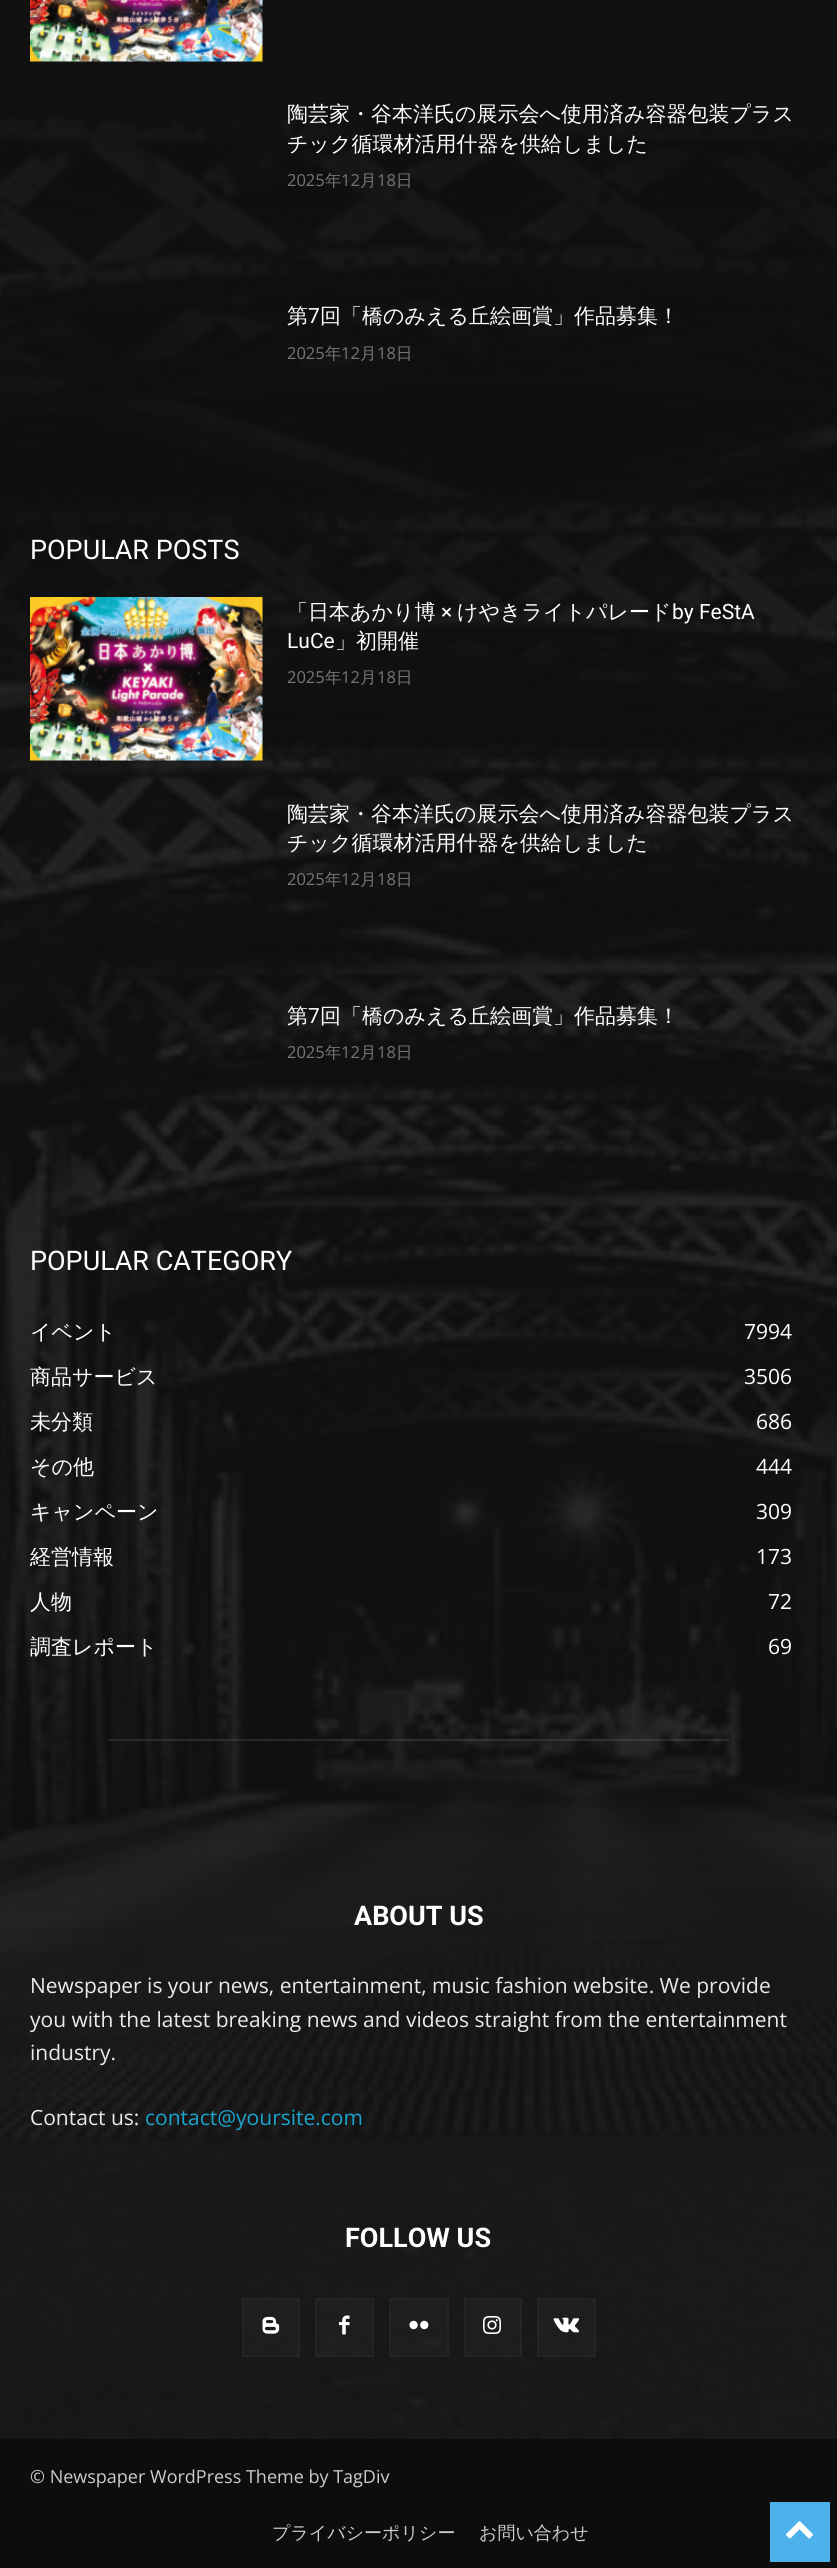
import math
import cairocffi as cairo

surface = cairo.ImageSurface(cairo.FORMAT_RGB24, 837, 2568)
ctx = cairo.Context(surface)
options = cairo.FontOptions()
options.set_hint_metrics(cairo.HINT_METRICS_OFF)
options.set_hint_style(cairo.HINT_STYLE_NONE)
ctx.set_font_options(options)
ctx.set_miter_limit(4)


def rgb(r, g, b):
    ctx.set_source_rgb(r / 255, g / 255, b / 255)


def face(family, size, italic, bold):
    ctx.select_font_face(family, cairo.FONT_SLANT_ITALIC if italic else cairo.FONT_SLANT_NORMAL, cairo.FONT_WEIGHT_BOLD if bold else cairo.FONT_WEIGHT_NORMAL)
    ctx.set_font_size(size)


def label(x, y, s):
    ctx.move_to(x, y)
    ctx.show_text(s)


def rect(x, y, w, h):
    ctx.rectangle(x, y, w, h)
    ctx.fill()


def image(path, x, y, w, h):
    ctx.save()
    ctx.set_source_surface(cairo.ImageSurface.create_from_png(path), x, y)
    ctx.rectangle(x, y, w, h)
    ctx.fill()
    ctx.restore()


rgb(17, 17, 17)
ctx.paint()
image('image0.png', 30, 0, 233, 62)
image('image7.png', 0, 118, 837, 2321)
face('WenQuanYi Zen Hei Medium', 21, 0, 0)
rgb(255, 255, 255)
label(287, 121, '陶芸家・谷本洋氏の展示会へ使用済み容器包装プラス')
label(287, 151, 'チック循環材活用什器を供給しました')
face('Open Sans', 16.5, 0, 0)
rgb(118, 118, 118)
label(287, 186, '2025')
face('WenQuanYi Zen Hei Medium', 16.5, 0, 0)
label(325, 186, '年')
face('Open Sans', 16.5, 0, 0)
label(341, 186, '12')
face('WenQuanYi Zen Hei Medium', 16.5, 0, 0)
label(360, 186, '月')
face('Open Sans', 16.5, 0, 0)
label(377, 186, '18')
face('WenQuanYi Zen Hei Medium', 16.5, 0, 0)
label(396, 186, '日')
face('WenQuanYi Zen Hei Medium', 21, 0, 0)
rgb(255, 255, 255)
label(287, 323, '第')
face('Roboto', 21, 0, 0)
label(308, 323, '7')
face('WenQuanYi Zen Hei Medium', 21, 0, 0)
label(320, 323, '回「橋のみえる丘絵画賞」作品募集！')
face('Open Sans', 16.5, 0, 0)
rgb(118, 118, 118)
label(287, 359, '2025')
face('WenQuanYi Zen Hei Medium', 16.5, 0, 0)
label(325, 359, '年')
face('Open Sans', 16.5, 0, 0)
label(341, 359, '12')
face('WenQuanYi Zen Hei Medium', 16.5, 0, 0)
label(360, 359, '月')
face('Open Sans', 16.5, 0, 0)
label(377, 359, '18')
face('WenQuanYi Zen Hei Medium', 16.5, 0, 0)
label(396, 359, '日')
face('Roboto', 27, 0, 0)
rgb(255, 255, 255)
label(30, 559, 'POPULAR POSTS')
image('image1.png', 30, 597, 233, 164)
face('WenQuanYi Zen Hei Medium', 21, 0, 0)
label(287, 619, '「日本あかり博')
face('Roboto', 21, 0, 0)
label(441, 619, '×')
face('WenQuanYi Zen Hei Medium', 21, 0, 0)
label(457, 619, 'けやきライトパレード')
face('Roboto', 21, 0, 0)
label(672, 619, 'by FeStA')
label(287, 648, 'LuCe')
face('WenQuanYi Zen Hei Medium', 21, 0, 0)
label(335, 648, '」初開催')
face('Open Sans', 16.5, 0, 0)
rgb(118, 118, 118)
label(287, 683, '2025')
face('WenQuanYi Zen Hei Medium', 16.5, 0, 0)
label(325, 683, '年')
face('Open Sans', 16.5, 0, 0)
label(341, 683, '12')
face('WenQuanYi Zen Hei Medium', 16.5, 0, 0)
label(360, 683, '月')
face('Open Sans', 16.5, 0, 0)
label(377, 683, '18')
face('WenQuanYi Zen Hei Medium', 16.5, 0, 0)
label(396, 683, '日')
face('WenQuanYi Zen Hei Medium', 21, 0, 0)
rgb(255, 255, 255)
label(287, 821, '陶芸家・谷本洋氏の展示会へ使用済み容器包装プラス')
label(287, 850, 'チック循環材活用什器を供給しました')
face('Open Sans', 16.5, 0, 0)
rgb(118, 118, 118)
label(287, 885, '2025')
face('WenQuanYi Zen Hei Medium', 16.5, 0, 0)
label(325, 885, '年')
face('Open Sans', 16.5, 0, 0)
label(341, 885, '12')
face('WenQuanYi Zen Hei Medium', 16.5, 0, 0)
label(360, 885, '月')
face('Open Sans', 16.5, 0, 0)
label(377, 885, '18')
face('WenQuanYi Zen Hei Medium', 16.5, 0, 0)
label(396, 885, '日')
face('WenQuanYi Zen Hei Medium', 21, 0, 0)
rgb(255, 255, 255)
label(287, 1023, '第')
face('Roboto', 21, 0, 0)
label(308, 1023, '7')
face('WenQuanYi Zen Hei Medium', 21, 0, 0)
label(320, 1023, '回「橋のみえる丘絵画賞」作品募集！')
face('Open Sans', 16.5, 0, 0)
rgb(118, 118, 118)
label(287, 1058, '2025')
face('WenQuanYi Zen Hei Medium', 16.5, 0, 0)
label(325, 1058, '年')
face('Open Sans', 16.5, 0, 0)
label(341, 1058, '12')
face('WenQuanYi Zen Hei Medium', 16.5, 0, 0)
label(360, 1058, '月')
face('Open Sans', 16.5, 0, 0)
label(377, 1058, '18')
face('WenQuanYi Zen Hei Medium', 16.5, 0, 0)
label(396, 1058, '日')
face('Roboto', 27, 0, 0)
rgb(255, 255, 255)
label(30, 1270, 'POPULAR CATEGORY')
face('WenQuanYi Zen Hei Medium', 21, 0, 0)
label(30, 1339, 'イベント')
face('Open Sans', 21, 0, 0)
label(744, 1339, '7994')
face('WenQuanYi Zen Hei Medium', 21, 0, 0)
label(30, 1384, '商品サービス')
face('Open Sans', 21, 0, 0)
label(744, 1384, '3506')
face('WenQuanYi Zen Hei Medium', 21, 0, 0)
label(30, 1429, '未分類')
face('Open Sans', 21, 0, 0)
label(756, 1429, '686')
face('WenQuanYi Zen Hei Medium', 21, 0, 0)
label(30, 1474, 'その他')
face('Open Sans', 21, 0, 0)
label(756, 1474, '444')
face('WenQuanYi Zen Hei Medium', 21, 0, 0)
label(30, 1519, 'キャンペーン')
face('Open Sans', 21, 0, 0)
label(756, 1519, '309')
face('WenQuanYi Zen Hei Medium', 21, 0, 0)
label(30, 1564, '経営情報')
face('Open Sans', 21, 0, 0)
label(756, 1564, '173')
face('WenQuanYi Zen Hei Medium', 21, 0, 0)
label(30, 1609, '人物')
face('Open Sans', 21, 0, 0)
label(768, 1609, '72')
face('WenQuanYi Zen Hei Medium', 21, 0, 0)
label(30, 1654, '調査レポート')
face('Open Sans', 21, 0, 0)
label(768, 1654, '69')
ctx.set_source_rgba(1, 1, 1, 0.1)
rect(108, 1739, 621, 2)
face('Roboto', 27, 0, 1)
rgb(255, 255, 255)
label(354, 1925, 'ABOUT US')
face('Open Sans', 21, 0, 0)
rgb(234, 234, 234)
label(30, 1993, 'Newspaper is your news, entertainment, music fashion website. We provide')
label(30, 2027, 'you with the latest breaking news and videos straight from the entertainment')
label(30, 2060, 'industry.')
label(30, 2125, 'Contact us:')
rgb(26, 164, 206)
label(145, 2125, 'contact@yoursite.com')
face('Roboto', 27, 0, 1)
rgb(255, 255, 255)
label(345, 2247, 'FOLLOW US')
ctx.set_source_rgba(1, 1, 1, 0.03)
rect(242, 2298, 58, 59)
ctx.rectangle(243, 2299, 56, 57)
ctx.stroke()
image('image2.png', 262, 2316, 18, 18)
rect(315, 2298, 59, 59)
ctx.rectangle(316, 2299, 57, 57)
ctx.stroke()
image('image3.png', 339, 2315, 11, 20)
rect(389, 2298, 60, 59)
ctx.rectangle(390, 2299, 58, 57)
ctx.stroke()
image('image4.png', 409, 2320, 20, 10)
rect(464, 2298, 58, 59)
ctx.rectangle(465, 2299, 56, 57)
ctx.stroke()
image('image5.png', 483, 2316, 18, 18)
rect(537, 2298, 59, 59)
ctx.rectangle(538, 2299, 57, 57)
ctx.stroke()
image('image6.png', 553, 2317, 27, 16)
rgb(13, 13, 13)
rect(0, 2439, 837, 129)
face('Open Sans', 18, 0, 0)
rgb(204, 204, 204)
label(30, 2483, '© Newspaper WordPress Theme by TagDiv')
face('WenQuanYi Zen Hei Medium', 18, 0, 0)
label(272, 2539, 'プライバシーポリシー')
label(479, 2539, 'お問い合わせ')
rgb(77, 178, 236)
rect(770, 2502, 60, 60)
image('image8.png', 786, 2521, 27, 18)
surface.write_to_png('render.png')
